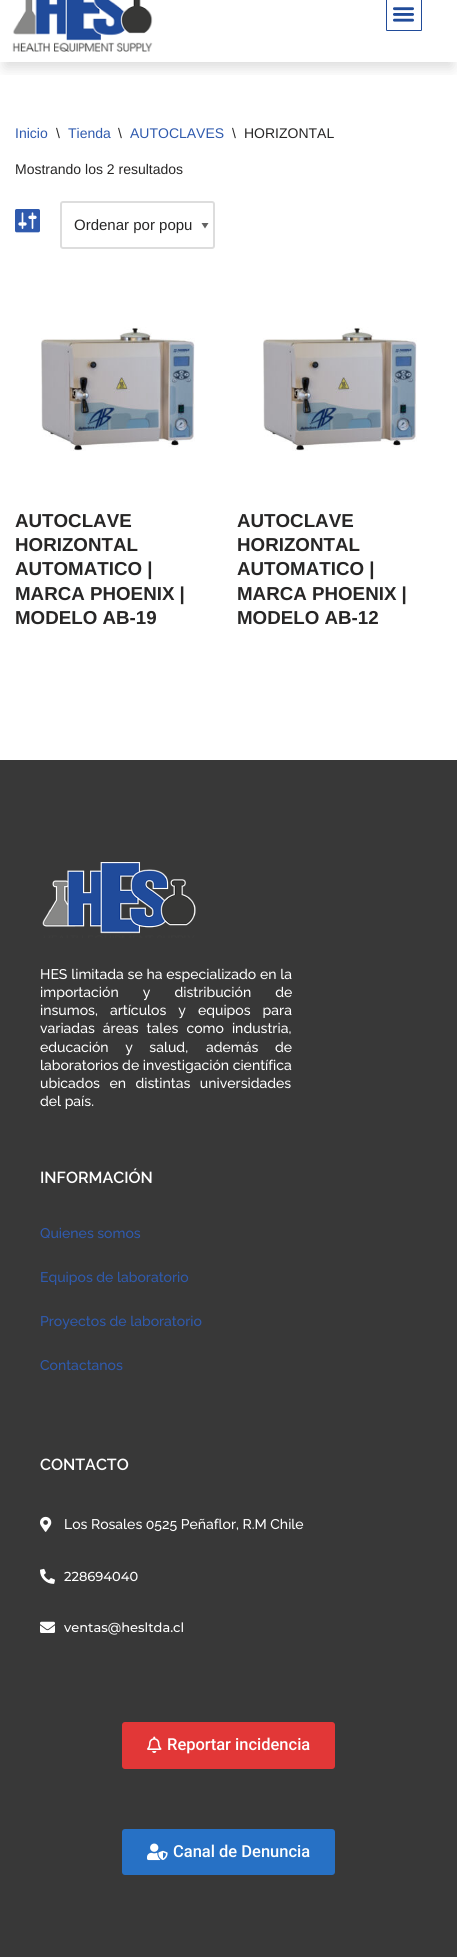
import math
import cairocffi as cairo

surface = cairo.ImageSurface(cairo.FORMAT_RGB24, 457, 1957)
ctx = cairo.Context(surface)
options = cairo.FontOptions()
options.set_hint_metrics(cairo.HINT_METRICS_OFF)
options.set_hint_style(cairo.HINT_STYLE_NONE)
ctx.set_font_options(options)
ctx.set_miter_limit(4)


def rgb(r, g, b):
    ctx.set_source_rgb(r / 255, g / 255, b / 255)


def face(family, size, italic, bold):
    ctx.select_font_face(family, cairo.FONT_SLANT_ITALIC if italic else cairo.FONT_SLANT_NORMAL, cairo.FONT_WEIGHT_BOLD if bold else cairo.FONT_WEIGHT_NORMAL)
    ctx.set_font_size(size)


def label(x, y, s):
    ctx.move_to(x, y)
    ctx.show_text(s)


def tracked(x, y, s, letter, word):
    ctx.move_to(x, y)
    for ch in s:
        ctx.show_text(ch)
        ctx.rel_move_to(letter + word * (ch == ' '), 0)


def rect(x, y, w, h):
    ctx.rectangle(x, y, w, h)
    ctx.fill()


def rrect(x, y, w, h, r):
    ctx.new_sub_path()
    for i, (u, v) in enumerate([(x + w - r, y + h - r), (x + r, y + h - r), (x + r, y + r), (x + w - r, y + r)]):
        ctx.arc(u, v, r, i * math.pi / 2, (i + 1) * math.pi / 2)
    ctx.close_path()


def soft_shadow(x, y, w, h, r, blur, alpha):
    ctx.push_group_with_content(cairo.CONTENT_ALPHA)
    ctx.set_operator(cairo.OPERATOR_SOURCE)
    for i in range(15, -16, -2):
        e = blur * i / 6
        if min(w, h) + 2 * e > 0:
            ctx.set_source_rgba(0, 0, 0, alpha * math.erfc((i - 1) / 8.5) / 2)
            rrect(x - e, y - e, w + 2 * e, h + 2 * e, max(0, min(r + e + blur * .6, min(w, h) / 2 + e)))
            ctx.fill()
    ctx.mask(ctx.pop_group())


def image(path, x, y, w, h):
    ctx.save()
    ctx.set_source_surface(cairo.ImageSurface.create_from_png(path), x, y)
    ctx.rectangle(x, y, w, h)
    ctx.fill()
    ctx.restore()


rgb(255, 255, 255)
ctx.paint()
ctx.save()
ctx.rectangle(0, 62, 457, 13)
ctx.clip()
rgb(0, 0, 0)
soft_shadow(5, -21, 447, 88, 0, 7.5, 0.15)
ctx.restore()
image('image0.png', 12, 0, 141, 52)
rrect(386.5, -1.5, 35, 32, 0.5)
rgb(32, 75, 153)
ctx.set_line_width(1)
ctx.stroke()
image('image1.png', 393, 7, 21, 15)
face('Liberation Sans', 14, 0, 0)
rgb(47, 90, 174)
label(15, 138, 'Inicio')
rgb(39, 38, 38)
label(56, 138, '\\')
rgb(47, 90, 174)
label(68, 138, 'Tienda')
rgb(39, 38, 38)
label(118, 138, '\\')
rgb(47, 90, 174)
label(130, 138, 'AUTOCLAVES')
rgb(39, 38, 38)
label(232, 138, '\\')
label(244, 138, 'HORIZONTAL')
label(15, 174, 'Mostrando los 2 resultados')
image('image2.png', 15, 209, 25, 24)
rgb(98, 98, 98)
ctx.new_path()
ctx.move_to(208.5, 223)
ctx.line_to(205, 228.5)
ctx.line_to(201.5, 223)
ctx.close_path()
ctx.fill()
rrect(61, 202, 153, 46, 2)
rgb(221, 221, 221)
ctx.set_line_width(2)
ctx.stroke()
face('Liberation Sans', 15, 0, 0)
rgb(39, 38, 38)
label(74, 230, 'Ordenar por popu')
image('image3.png', 41, 327, 154, 124)
face('Liberation Sans', 18.75, 0, 1)
label(15, 527, 'AUTOCLAVE')
label(15, 551, 'HORIZONTAL')
label(15, 575, 'AUTOMATICO |')
label(15, 600, 'MARCA PHOENIX |')
label(15, 624, 'MODELO AB-19')
image('image3.png', 263, 327, 154, 124)
label(237, 527, 'AUTOCLAVE')
label(237, 551, 'HORIZONTAL')
label(237, 575, 'AUTOMATICO |')
label(237, 600, 'MARCA PHOENIX |')
label(237, 624, 'MODELO AB-12')
rgb(56, 56, 56)
rect(0, 760, 457, 1197)
image('image4.png', 42, 862, 154, 76)
face('Raleway Medium', 14, 0, 0)
rgb(255, 255, 255)
tracked(40, 979, 'HES limitada se ha especializado en la', 0, 0.25)
tracked(40, 997, 'importación y distribución de', 0, 20.5)
tracked(40, 1015, 'insumos, artículos y equipos para', 0, 8.5)
tracked(40, 1033, 'variadas áreas tales como industria,', 0, 4.5)
tracked(40, 1052, 'educación y salud,', 0, 13)
tracked(206, 1052, 'además de', 0, 13)
label(40, 1070, 'laboratorios de investigación científica')
tracked(40, 1088, 'ubicados en distintas universidades', 0, 6)
label(40, 1106, 'del país.')
face('Raleway SemiBold', 16, 0, 0)
label(40, 1183, 'INFORMACIÓN')
face('Raleway Medium', 14, 0, 0)
rgb(47, 90, 174)
label(40, 1238, 'Quienes somos')
label(40, 1282, 'Equipos de laboratorio')
label(40, 1326, 'Proyectos de laboratorio')
label(40, 1370, 'Contactanos')
face('Raleway SemiBold', 16, 0, 0)
rgb(255, 255, 255)
label(40, 1470, 'CONTACTO')
image('image5.png', 40, 1516, 12, 16)
face('Raleway Medium', 14, 0, 0)
label(64, 1529, 'Los Rosales 0525 Peñaflor, R.M Chile')
image('image6.png', 40, 1568, 15, 16)
face('Montserrat Medium', 13, 0, 0)
label(64, 1581, '228694040')
image('image7.png', 40, 1621, 15, 12)
label(64, 1632, 'ventas@hesltda.cl')
rgb(226, 55, 55)
rrect(122, 1722, 213, 47, 3)
ctx.fill()
image('image8.png', 147, 1736, 15, 17)
face('Roboto Medium', 16.5, 0, 0)
rgb(255, 255, 255)
label(167, 1750, 'Reportar incidencia')
rgb(39, 113, 197)
rrect(122, 1829, 213, 46, 3)
ctx.fill()
image('image9.png', 147, 1843, 21, 18)
rgb(255, 255, 255)
label(173, 1857, 'Canal de Denuncia')
surface.write_to_png('render.png')
